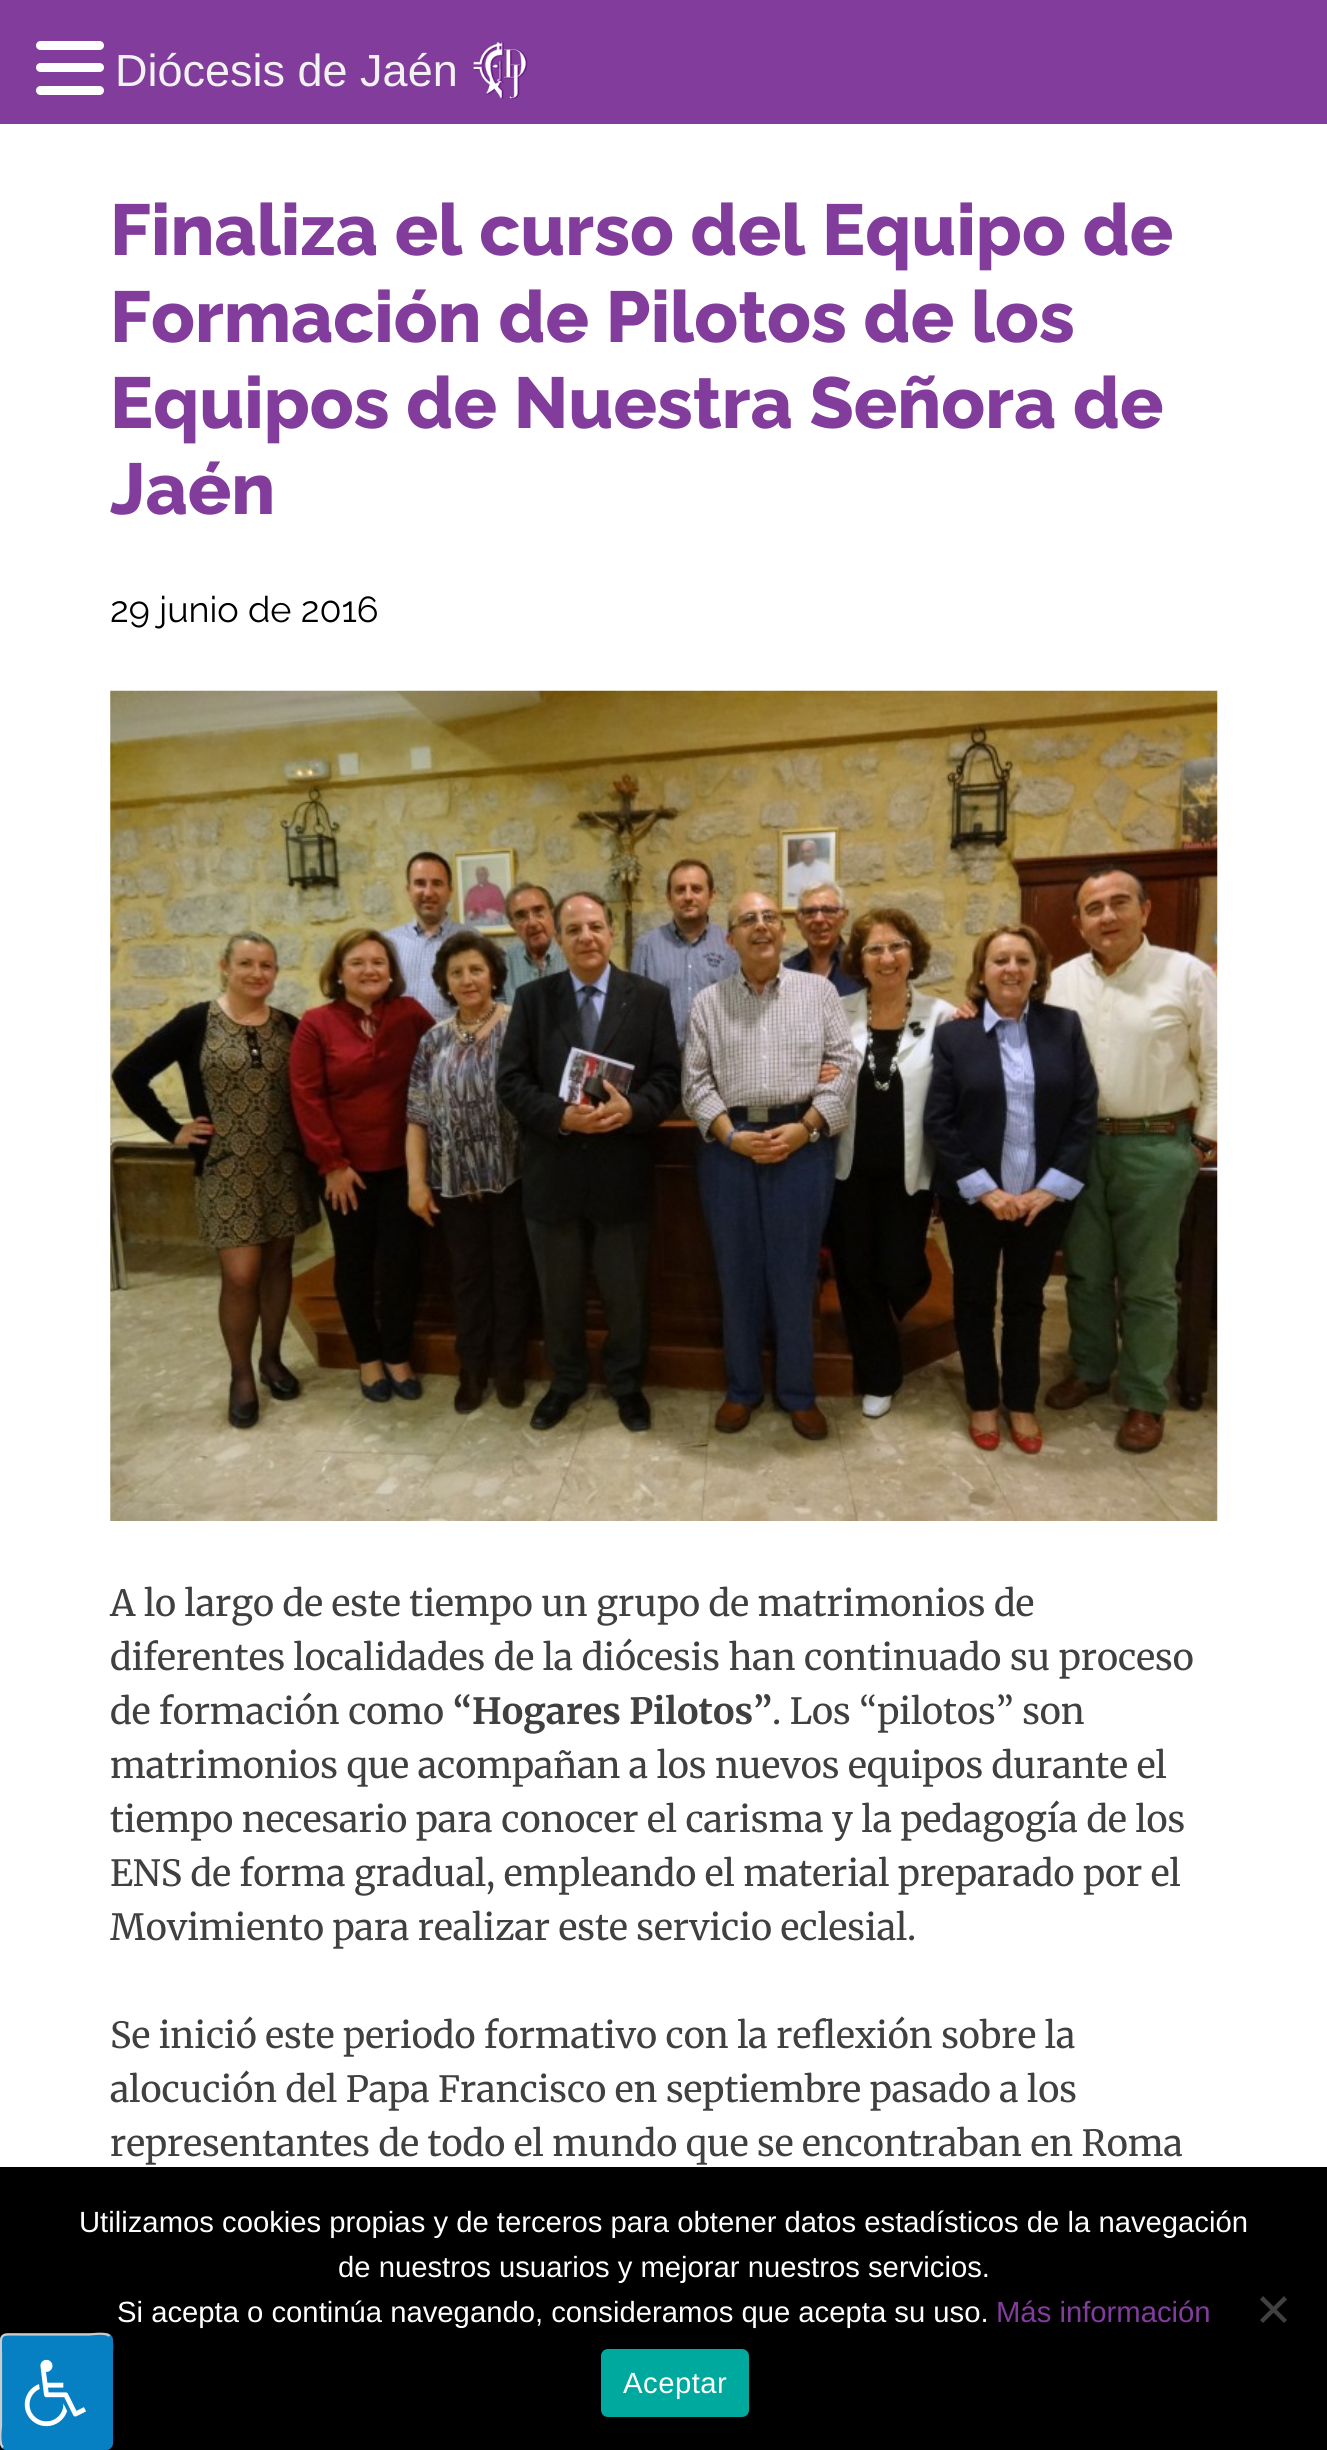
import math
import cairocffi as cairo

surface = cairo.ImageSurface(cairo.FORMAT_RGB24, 1327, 2450)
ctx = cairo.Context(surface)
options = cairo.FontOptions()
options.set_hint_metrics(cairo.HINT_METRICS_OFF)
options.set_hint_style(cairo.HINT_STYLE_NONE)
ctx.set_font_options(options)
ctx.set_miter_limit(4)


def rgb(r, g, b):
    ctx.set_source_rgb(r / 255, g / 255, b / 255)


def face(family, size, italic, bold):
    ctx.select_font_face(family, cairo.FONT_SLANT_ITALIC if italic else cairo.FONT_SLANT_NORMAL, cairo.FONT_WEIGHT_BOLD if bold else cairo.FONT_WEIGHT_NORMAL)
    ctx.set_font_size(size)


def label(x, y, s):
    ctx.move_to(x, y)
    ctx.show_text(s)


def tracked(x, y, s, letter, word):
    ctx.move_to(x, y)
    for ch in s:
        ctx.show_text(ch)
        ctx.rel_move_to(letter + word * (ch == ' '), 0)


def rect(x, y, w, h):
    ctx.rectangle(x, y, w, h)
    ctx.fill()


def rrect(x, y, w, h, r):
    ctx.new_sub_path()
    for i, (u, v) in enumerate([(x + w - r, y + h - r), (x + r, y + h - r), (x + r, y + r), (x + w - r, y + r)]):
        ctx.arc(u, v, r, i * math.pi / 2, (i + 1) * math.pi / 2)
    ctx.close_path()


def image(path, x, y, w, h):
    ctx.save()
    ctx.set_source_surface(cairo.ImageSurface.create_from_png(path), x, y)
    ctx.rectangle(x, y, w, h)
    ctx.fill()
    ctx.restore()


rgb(255, 255, 255)
ctx.paint()
rgb(130, 60, 156)
rect(0, 0, 1327, 124)
rgb(255, 255, 255)
rrect(36, 41, 68, 9, 4.5)
ctx.fill()
rrect(36, 63, 68, 9, 4.5)
ctx.fill()
rrect(36, 86, 68, 9, 4.5)
ctx.fill()
face('Liberation Sans', 45, 0, 0)
rgb(242, 242, 242)
label(115, 86, 'Diócesis de Jaén')
image('image0.png', 473, 42, 55, 57)
face('Raleway ExtraBold', 72, 0, 0)
rgb(130, 60, 156)
label(110, 255, 'Finaliza el curso del Equipo de')
label(110, 342, 'Formación de Pilotos de los')
label(110, 428, 'Equipos de Nuestra Señora de')
label(110, 514, 'Jaén')
face('Raleway', 36, 0, 0)
rgb(0, 0, 0)
label(110, 622, '29 junio de 2016')
image('image1.png', 110, 690, 1108, 831)
face('Merriweather', 36, 0, 0)
rgb(64, 64, 64)
label(110, 1616, 'A lo largo de este tiempo un grupo de matrimonios de')
label(110, 1670, 'diferentes localidades de la diócesis han continuado su proceso')
label(110, 1724, 'de formación como')
face('Merriweather', 36, 0, 1)
label(453, 1724, '“Hogares Pilotos”')
face('Merriweather', 36, 0, 0)
label(772, 1724, '. Los “pilotos” son')
label(110, 1778, 'matrimonios que acompañan a los nuevos equipos durante el')
label(110, 1832, 'tiempo necesario para conocer el carisma y la pedagogía de los')
label(110, 1886, 'ENS de forma gradual, empleando el material preparado por el')
label(110, 1940, 'Movimiento para realizar este servicio eclesial.')
label(110, 2048, 'Se inició este periodo formativo con la reflexión sobre la')
label(110, 2102, 'alocución del Papa Francisco en septiembre pasado a los')
label(110, 2156, 'representantes de todo el mundo que se encontraban en Roma')
rgb(0, 0, 0)
rect(0, 2167, 1327, 283)
rgb(7, 128, 195)
rrect(0, 2333, 113, 117, 7)
ctx.fill()
ctx.new_path()
ctx.move_to(109.5, 2336)
ctx.curve_to(114, 2340.5, 111.5, 2356, 111.5, 2357)
ctx.line_to(111.5, 2426)
ctx.curve_to(111.5, 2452, 115, 2449, 89, 2449)
ctx.line_to(23, 2449)
ctx.curve_to(21.5, 2449, 7, 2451.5, 3, 2447.5)
ctx.set_line_width(2.2)
ctx.stroke()
ctx.new_path()
ctx.move_to(3, 2447.5)
ctx.curve_to(-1.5, 2443, 1, 2427.5, 1, 2426)
ctx.line_to(1, 2357)
ctx.curve_to(1, 2331.5, -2.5, 2334.5, 23, 2334.5)
ctx.line_to(89, 2334.5)
ctx.curve_to(91, 2334.5, 105.5, 2332, 109.5, 2336)
rgb(204, 204, 204)
ctx.stroke()
image('image2.png', 24, 2359, 62, 68)
face('Liberation Sans', 29.25, 0, 0)
rgb(255, 255, 255)
label(79, 2232, 'Utilizamos cookies propias y de terceros para obtener datos estadísticos de la navegación')
label(338, 2277, 'de nuestros usuarios y mejorar nuestros servicios.')
label(117, 2322, 'Si acepta o continúa navegando, consideramos que acepta su uso.')
rgb(130, 60, 156)
label(996, 2322, 'Más información')
rgb(64, 64, 64)
ctx.new_path()
ctx.move_to(1284, 2296)
ctx.line_to(1287, 2299.5)
ctx.line_to(1263, 2323)
ctx.line_to(1260, 2320)
ctx.close_path()
ctx.fill()
ctx.new_path()
ctx.move_to(1260, 2299.5)
ctx.line_to(1263, 2296)
ctx.line_to(1287, 2320)
ctx.line_to(1284, 2323)
ctx.close_path()
ctx.fill()
rgb(0, 169, 157)
rrect(601, 2349, 148, 68, 7)
ctx.fill()
rgb(255, 255, 255)
tracked(623, 2393, 'Aceptar', 0.5, 0)
surface.write_to_png('render.png')
